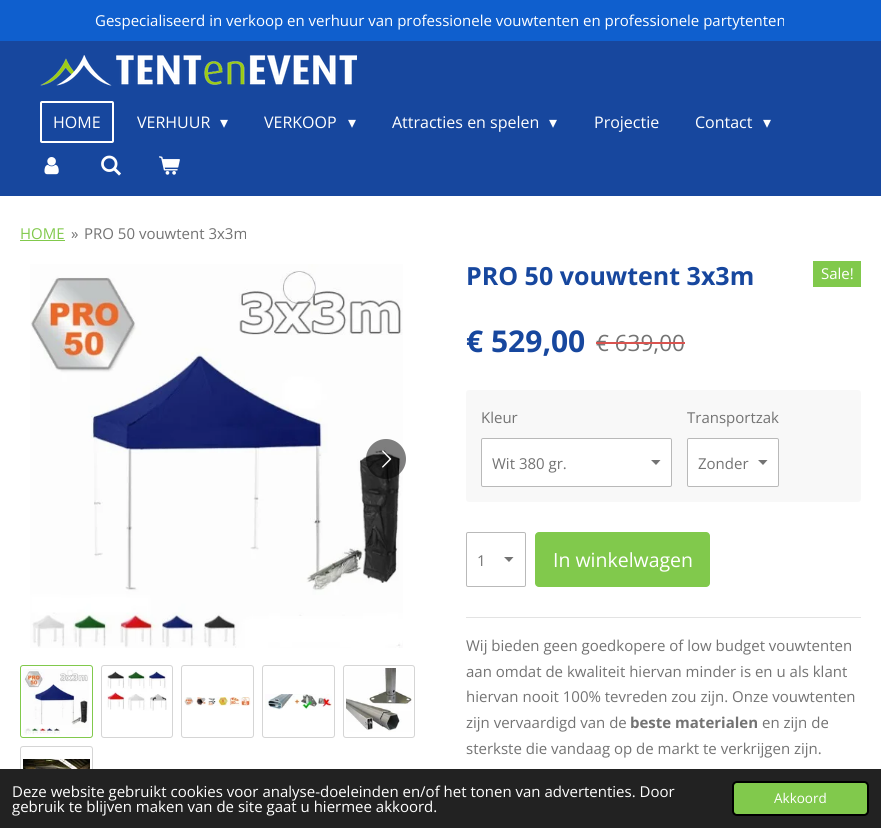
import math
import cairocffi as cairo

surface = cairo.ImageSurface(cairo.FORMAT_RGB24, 881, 828)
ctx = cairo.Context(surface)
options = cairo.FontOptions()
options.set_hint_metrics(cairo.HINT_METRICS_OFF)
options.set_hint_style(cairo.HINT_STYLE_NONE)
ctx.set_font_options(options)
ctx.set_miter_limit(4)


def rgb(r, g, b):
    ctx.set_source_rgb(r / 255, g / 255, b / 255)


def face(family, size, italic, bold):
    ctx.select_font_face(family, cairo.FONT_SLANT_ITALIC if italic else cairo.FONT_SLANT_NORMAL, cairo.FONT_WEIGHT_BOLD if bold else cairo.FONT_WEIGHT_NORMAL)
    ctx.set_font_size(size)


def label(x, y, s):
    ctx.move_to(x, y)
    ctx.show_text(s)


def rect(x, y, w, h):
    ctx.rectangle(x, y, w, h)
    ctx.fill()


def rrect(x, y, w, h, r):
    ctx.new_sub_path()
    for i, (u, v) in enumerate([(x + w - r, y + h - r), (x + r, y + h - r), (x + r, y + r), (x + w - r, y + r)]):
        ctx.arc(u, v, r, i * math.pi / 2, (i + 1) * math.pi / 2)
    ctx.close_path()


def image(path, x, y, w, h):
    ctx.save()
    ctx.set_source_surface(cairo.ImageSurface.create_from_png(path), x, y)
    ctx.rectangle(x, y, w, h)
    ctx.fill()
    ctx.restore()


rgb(255, 255, 255)
ctx.paint()
rgb(23, 71, 158)
rect(0, 41, 881, 155)
rgb(15, 95, 206)
rect(0, 0, 881, 41)
face('Open Sans', 15, 0, 0)
rgb(255, 255, 255)
label(95, 26, 'Gespecialiseerd in verkoop en verhuur van professionele vouwtenten en professionele partytenten')
image('image0.png', 40, 55, 317, 31)
rrect(41, 102, 72, 40, 1)
ctx.stroke()
face('Open Sans', 16, 0, 0)
label(53, 128, 'HOME')
label(137, 128, 'VERHUUR')
face('DejaVu Sans', 16, 0, 0)
label(220, 128, '▾')
face('Open Sans', 16, 0, 0)
label(264, 128, 'VERKOOP')
face('DejaVu Sans', 16, 0, 0)
label(348, 128, '▾')
face('Open Sans', 16, 0, 0)
label(392, 128, 'Attracties en spelen')
face('DejaVu Sans', 16, 0, 0)
label(549, 128, '▾')
face('Open Sans', 16, 0, 0)
label(594, 128, 'Projectie')
label(695, 128, 'Contact')
face('DejaVu Sans', 16, 0, 0)
label(763, 128, '▾')
image('image1.png', 44, 157, 15, 18)
image('image2.png', 101, 155, 20, 21)
image('image3.png', 159, 156, 21, 19)
face('Open Sans', 15, 0, 0)
rgb(129, 201, 76)
label(20, 239, 'HOME')
rect(20, 240, 45, 1)
rgb(115, 115, 115)
label(71, 239, '»')
label(84, 239, 'PRO 50 vouwtent 3x3m')
image('image4.png', 30, 264, 373, 384)
ctx.set_source_rgba(0, 0, 0, 0.5)
ctx.arc(386, 459, 20, 0, 2 * math.pi)
ctx.fill()
image('image5.png', 382, 450, 10, 18)
rrect(20.5, 665.5, 72, 72, 2.5)
rgb(129, 201, 76)
ctx.set_line_width(1)
ctx.stroke()
image('image6.png', 23, 669, 66, 66)
rrect(101.5, 665.5, 71, 72, 2.5)
rgb(213, 213, 213)
ctx.stroke()
image('image7.png', 104, 670, 63, 41)
rrect(181.5, 665.5, 72, 72, 2.5)
ctx.stroke()
image('image8.png', 184, 697, 67, 9)
rrect(262.5, 665.5, 72, 72, 2.5)
ctx.stroke()
image('image9.png', 265, 694, 67, 16)
rrect(343.5, 665.5, 71, 72, 2.5)
ctx.stroke()
image('image10.png', 346, 668, 66, 64)
rrect(20.5, 746.5, 72, 72, 2.5)
ctx.stroke()
image('image11.png', 23, 759, 67, 10)
face('Open Sans', 25, 0, 1)
rgb(23, 71, 158)
label(466, 285, 'PRO 50 vouwtent 3x3m')
rgb(129, 201, 76)
rect(813, 261, 48, 26)
face('Open Sans', 15, 0, 0)
rgb(255, 255, 255)
label(821, 279, 'Sale!')
face('Open Sans', 30, 0, 1)
rgb(23, 71, 158)
label(466, 352, '€ 529,00')
face('Open Sans', 22.5, 0, 0)
rgb(115, 115, 115)
label(596, 351, '€ 639,00')
rgb(217, 83, 79)
rect(596, 342, 89, 2)
rgb(248, 248, 248)
rrect(466, 390, 395, 112, 3)
ctx.fill()
face('Open Sans', 15, 0, 0)
rgb(115, 115, 115)
label(481, 423, 'Kleur')
rgb(255, 255, 255)
rrect(481, 438, 191, 49, 2)
ctx.fill()
rgb(115, 115, 115)
ctx.new_path()
ctx.move_to(656, 465)
ctx.line_to(651, 460)
ctx.line_to(660.5, 460)
ctx.close_path()
ctx.fill()
rrect(481.5, 438.5, 190, 48, 1.5)
rgb(185, 185, 185)
ctx.stroke()
rgb(115, 115, 115)
label(492, 469, 'Wit 380 gr.')
label(687, 423, 'Transportzak')
rgb(255, 255, 255)
rrect(687, 438, 92, 49, 2)
ctx.fill()
rgb(115, 115, 115)
ctx.new_path()
ctx.move_to(763, 465)
ctx.line_to(758, 460)
ctx.line_to(767.5, 460)
ctx.close_path()
ctx.fill()
rrect(687.5, 438.5, 91, 48, 1.5)
rgb(185, 185, 185)
ctx.stroke()
rgb(115, 115, 115)
label(698, 469, 'Zonder')
ctx.new_path()
ctx.move_to(509, 562)
ctx.line_to(504, 557)
ctx.line_to(513.5, 557)
ctx.close_path()
ctx.fill()
rrect(466.5, 532.5, 59, 54, 1.5)
rgb(185, 185, 185)
ctx.stroke()
rgb(115, 115, 115)
label(477, 566, '1')
rgb(129, 201, 76)
rrect(535, 532, 175, 55, 4)
ctx.fill()
face('Open Sans', 19.5, 0, 0)
rgb(255, 255, 255)
label(553, 567, 'In winkelwagen')
rgb(227, 227, 227)
rect(466, 617, 395, 1)
face('Open Sans', 15, 0, 0)
rgb(115, 115, 115)
label(466, 651, 'Wij bieden geen goedkopere of low budget vouwtenten')
label(466, 677, 'aan omdat de kwaliteit hiervan minder is en u als klant')
label(466, 702, 'hiervan nooit 100% tevreden zou zijn. Onze vouwtenten')
label(466, 728, 'zijn vervaardigd van de')
face('Open Sans', 15, 0, 1)
label(630, 728, 'beste materialen')
face('Open Sans', 15, 0, 0)
label(762, 728, 'en zijn de')
label(466, 754, 'sterkste die vandaag op de markt te verkrijgen zijn.')
rgb(34, 34, 34)
rect(0, 769, 881, 59)
rgb(255, 255, 255)
label(12, 797, 'Deze website gebruikt cookies voor analyse-doeleinden en/of het tonen van advertenties. Door')
label(12, 812, 'gebruik te blijven maken van de site gaat u hiermee akkoord.')
rgb(129, 201, 76)
rrect(733, 782, 135, 33, 4)
ctx.fill_preserve()
rgb(0, 0, 0)
ctx.set_line_width(2)
ctx.stroke()
face('Open Sans', 13.5, 0, 0)
rgb(255, 255, 255)
label(774, 803, 'Akkoord')
surface.write_to_png('render.png')
